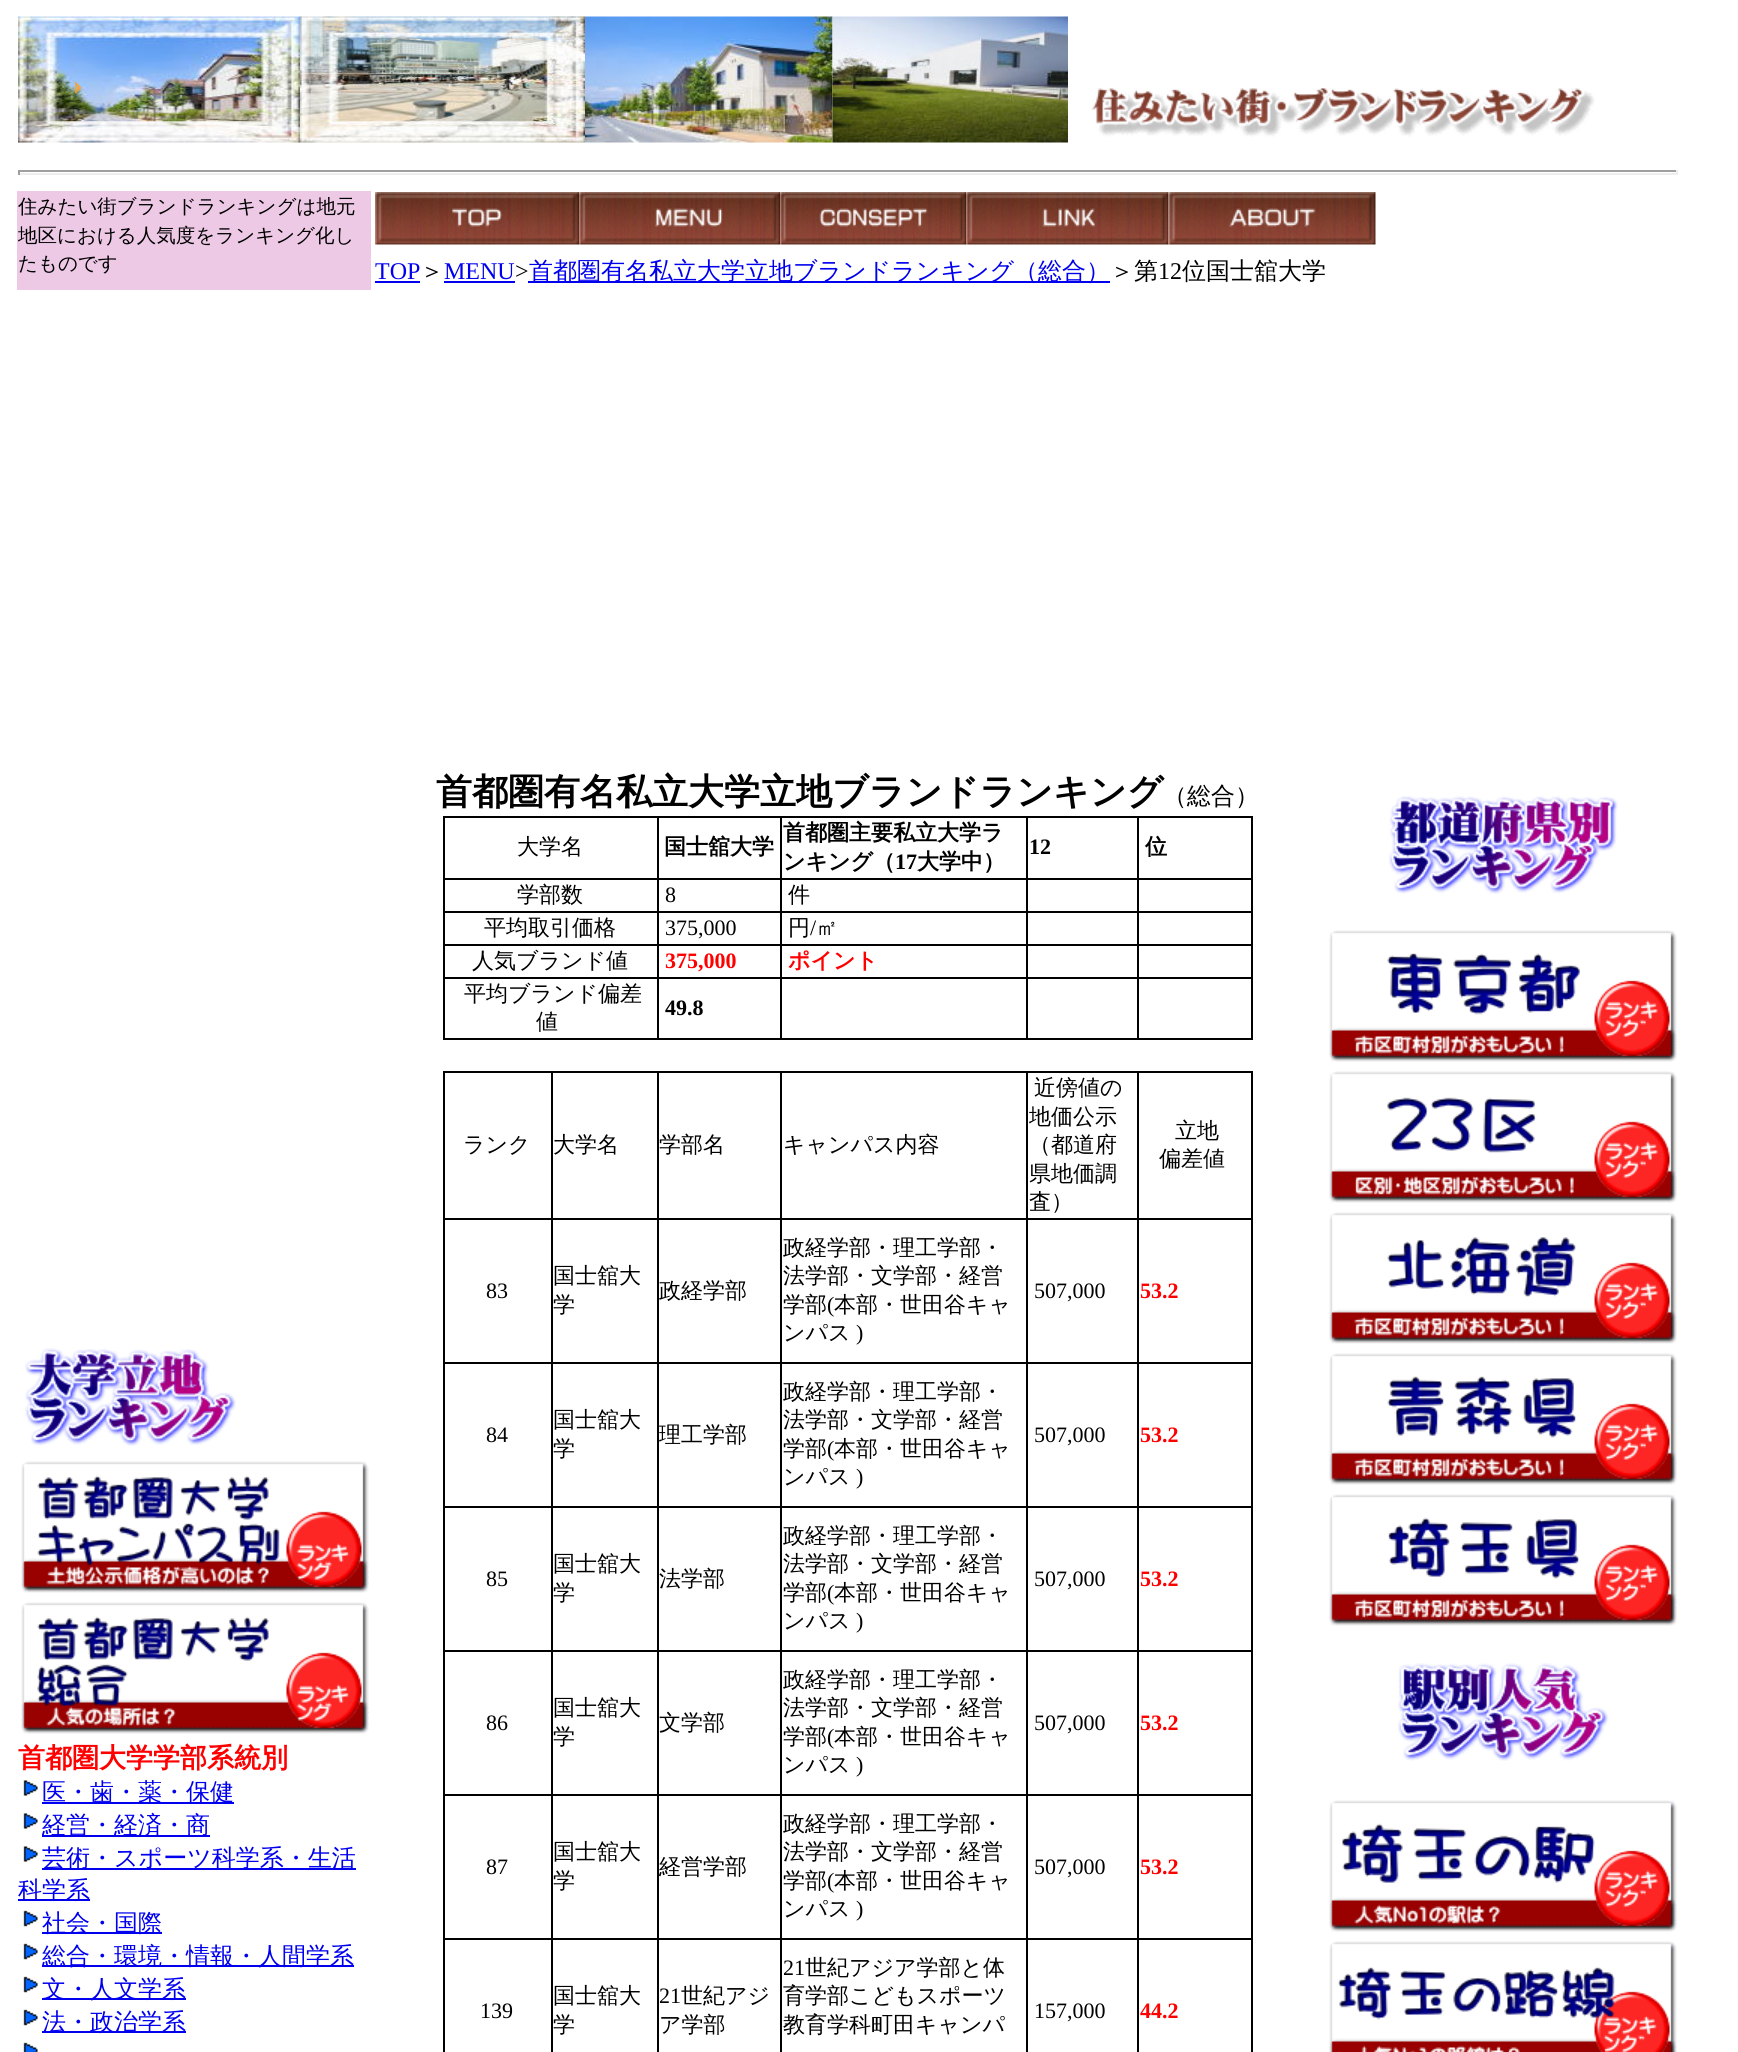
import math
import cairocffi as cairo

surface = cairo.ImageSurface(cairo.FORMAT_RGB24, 1738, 2052)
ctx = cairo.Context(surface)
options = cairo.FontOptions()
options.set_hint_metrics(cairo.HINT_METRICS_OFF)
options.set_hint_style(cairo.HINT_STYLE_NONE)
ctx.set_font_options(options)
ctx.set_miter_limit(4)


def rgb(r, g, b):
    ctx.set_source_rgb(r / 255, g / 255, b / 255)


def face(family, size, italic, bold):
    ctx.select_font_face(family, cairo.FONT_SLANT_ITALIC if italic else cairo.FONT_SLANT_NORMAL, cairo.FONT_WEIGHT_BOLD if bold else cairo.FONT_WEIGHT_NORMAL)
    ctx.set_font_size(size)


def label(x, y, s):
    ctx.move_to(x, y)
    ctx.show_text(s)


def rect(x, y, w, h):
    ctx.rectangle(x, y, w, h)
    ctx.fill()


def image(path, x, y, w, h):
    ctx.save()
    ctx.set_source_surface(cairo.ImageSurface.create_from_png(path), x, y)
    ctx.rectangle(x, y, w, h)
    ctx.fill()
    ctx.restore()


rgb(255, 255, 255)
ctx.paint()
image('image2.png', 18, 16, 282, 127)
image('image0.png', 75, 82, 7, 12)
image('image1.png', 75, 82, 7, 12)
image('image3.png', 300, 16, 285, 127)
image('image4.png', 585, 16, 248, 127)
image('image5.png', 832, 16, 236, 127)
image('image6.png', 1091, 88, 504, 49)
rgb(159, 159, 159)
rect(18, 170, 1659, 2)
rgb(238, 238, 238)
rect(1676, 170, 2, 5)
rect(18, 173, 1659, 2)
rgb(159, 159, 159)
rect(18, 170, 2, 5)
rgb(237, 201, 230)
rect(17, 191, 354, 99)
face('WenQuanYi Zen Hei Medium', 19.5, 0, 0)
rgb(0, 0, 0)
label(18, 213, '住みたい街ブランドランキングは地元')
label(18, 242, '地区における人気度をランキング化し')
label(18, 270, 'たものです')
image('image7.png', 375, 192, 204, 53)
image('image8.png', 579, 192, 201, 53)
image('image9.png', 780, 192, 186, 53)
image('image10.png', 966, 192, 203, 53)
image('image11.png', 1168, 192, 208, 53)
face('Liberation Serif', 24, 0, 0)
rgb(0, 0, 238)
label(375, 279, 'TOP')
rect(375, 281, 45, 2)
face('WenQuanYi Zen Hei Medium', 24, 0, 0)
rgb(0, 0, 0)
label(420, 279, '＞')
face('Liberation Serif', 24, 0, 0)
rgb(0, 0, 238)
label(444, 279, 'MENU')
rect(444, 281, 71, 2)
rgb(0, 0, 0)
label(515, 279, '>')
rgb(0, 0, 238)
rect(528, 281, 582, 2)
face('WenQuanYi Zen Hei Medium', 24, 0, 0)
label(529, 279, '首都圏有名私立大学立地ブランドランキング（総合）')
rgb(0, 0, 0)
label(1110, 279, '＞第')
face('Liberation Serif', 24, 0, 0)
label(1158, 279, '12')
face('WenQuanYi Zen Hei Medium', 24, 0, 0)
label(1182, 279, '位国士舘大学')
image('image12.png', 25, 1348, 211, 98)
image('image13.png', 21, 1461, 348, 132)
image('image14.png', 21, 1602, 348, 132)
face('WenQuanYi Zen Hei', 27, 0, 1)
rgb(255, 0, 0)
label(18, 1767, '首都圏大学学部系統別')
image('image15.png', 23, 1780, 15, 16)
rgb(0, 0, 238)
rect(42, 1802, 192, 2)
face('WenQuanYi Zen Hei Medium', 24, 0, 0)
label(42, 1800, '医・歯・薬・保健')
image('image15.png', 23, 1813, 15, 16)
rect(42, 1835, 168, 2)
label(42, 1833, '経営・経済・商')
image('image15.png', 23, 1846, 15, 16)
rect(42, 1868, 314, 2)
label(42, 1866, '芸術・スポーツ科学系・生活')
rect(18, 1899, 72, 2)
label(18, 1898, '科学系')
image('image16.png', 23, 1910, 15, 17)
rect(42, 1932, 120, 2)
label(42, 1931, '社会・国際')
image('image16.png', 23, 1943, 15, 17)
rect(42, 1965, 312, 2)
label(42, 1964, '総合・環境・情報・人間学系')
image('image16.png', 23, 1976, 15, 17)
rect(42, 1998, 144, 2)
label(42, 1997, '文・人文学系')
image('image16.png', 23, 2009, 15, 17)
rect(42, 2031, 144, 2)
label(42, 2030, '法・政治学系')
image('image17.png', 23, 2042, 15, 10)
face('WenQuanYi Zen Hei', 36, 0, 1)
rgb(0, 0, 0)
label(436, 804, '首都圏有名私立大学立地ブランドランキング')
face('WenQuanYi Zen Hei Medium', 24, 0, 0)
label(1163, 804, '（総合）')
rect(1137, 816, 116, 2)
rect(1137, 878, 116, 2)
rect(1137, 911, 116, 2)
rect(1137, 944, 116, 2)
rect(1137, 977, 116, 2)
rect(1251, 977, 2, 63)
rect(1137, 1038, 116, 2)
rect(1137, 977, 2, 63)
rect(1026, 977, 113, 2)
rect(1137, 944, 2, 34)
rect(1026, 944, 113, 2)
rect(1137, 911, 2, 34)
rect(1026, 911, 113, 2)
rect(1137, 878, 2, 34)
rect(1026, 878, 113, 2)
rect(1137, 816, 2, 63)
rect(1026, 816, 113, 2)
rect(1026, 1038, 113, 2)
rect(1026, 977, 2, 63)
rect(780, 977, 248, 2)
rect(1026, 944, 2, 34)
rect(780, 944, 248, 2)
rect(1026, 911, 2, 34)
rect(780, 911, 248, 2)
rect(1026, 878, 2, 34)
rect(780, 878, 248, 2)
rect(1026, 816, 2, 63)
rect(780, 816, 248, 2)
rect(780, 1038, 248, 2)
rect(780, 977, 2, 63)
rect(657, 977, 125, 2)
rect(780, 944, 2, 34)
rect(657, 944, 125, 2)
rect(780, 911, 2, 34)
rect(657, 911, 125, 2)
rect(780, 878, 2, 34)
rect(657, 878, 125, 2)
rect(780, 816, 2, 63)
rect(443, 816, 339, 2)
rect(657, 1038, 125, 2)
rect(657, 977, 2, 63)
rect(443, 977, 216, 2)
rect(657, 944, 2, 34)
rect(443, 944, 216, 2)
rect(657, 911, 2, 34)
rect(443, 911, 216, 2)
rect(657, 878, 2, 34)
rect(443, 878, 216, 2)
rect(657, 816, 2, 63)
rect(443, 1038, 216, 2)
rect(443, 977, 2, 63)
rect(443, 944, 2, 34)
rect(443, 911, 2, 34)
rect(443, 878, 2, 34)
rect(443, 816, 2, 63)
face('WenQuanYi Zen Hei Medium', 22, 0, 0)
label(517, 854, '大学名')
face('WenQuanYi Zen Hei', 22, 0, 1)
label(664, 854, '国士舘大学')
label(783, 840, '首都圏主要私立大学ラ')
label(783, 869, 'ンキング（')
face('Liberation Serif', 22, 0, 1)
label(895, 869, '17')
face('WenQuanYi Zen Hei', 22, 0, 1)
label(917, 869, '大学中）')
face('Liberation Serif', 22, 0, 1)
label(1029, 854, '12')
rect(1251, 944, 2, 34)
rect(1251, 911, 2, 34)
rect(1251, 878, 2, 34)
rect(1251, 816, 2, 63)
face('WenQuanYi Zen Hei', 22, 0, 1)
label(1145, 854, '位')
face('WenQuanYi Zen Hei Medium', 22, 0, 0)
label(517, 902, '学部数')
face('Liberation Serif', 22, 0, 0)
label(665, 902, '8')
face('WenQuanYi Zen Hei Medium', 22, 0, 0)
label(788, 902, '件')
label(484, 935, '平均取引価格')
face('Liberation Serif', 22, 0, 0)
label(665, 935, '375,000')
face('WenQuanYi Zen Hei Medium', 22, 0, 0)
label(788, 935, '円')
face('Liberation Serif', 22, 0, 0)
label(810, 935, '/')
face('WenQuanYi Zen Hei Medium', 22, 0, 0)
label(816, 935, '㎡')
label(472, 968, '人気ブランド値')
face('Liberation Serif', 22, 0, 1)
rgb(255, 0, 0)
label(665, 968, '375,000')
face('WenQuanYi Zen Hei', 22, 0, 1)
label(788, 968, 'ポイント')
face('WenQuanYi Zen Hei Medium', 22, 0, 0)
rgb(0, 0, 0)
label(464, 1001, '平均ブランド偏差')
label(536, 1029, '値')
face('Liberation Serif', 22, 0, 1)
label(665, 1015, '49.8')
rect(1137, 1071, 116, 2)
rect(1137, 1218, 116, 2)
rect(1137, 1362, 116, 2)
rect(1137, 1506, 116, 2)
rect(1137, 1650, 116, 2)
rect(1137, 1794, 116, 2)
rect(1137, 1938, 116, 2)
rect(1137, 1938, 2, 114)
rect(1026, 1938, 113, 2)
rect(1137, 1794, 2, 146)
rect(1026, 1794, 113, 2)
rect(1137, 1650, 2, 146)
rect(1026, 1650, 113, 2)
rect(1137, 1506, 2, 146)
rect(1026, 1506, 113, 2)
rect(1137, 1362, 2, 146)
rect(1026, 1362, 113, 2)
rect(1137, 1218, 2, 146)
rect(1026, 1218, 113, 2)
rect(1137, 1071, 2, 149)
rect(1026, 1071, 113, 2)
rect(1026, 1938, 2, 114)
rect(780, 1938, 248, 2)
rect(1026, 1794, 2, 146)
rect(780, 1794, 248, 2)
rect(1026, 1650, 2, 146)
rect(780, 1650, 248, 2)
rect(1026, 1506, 2, 146)
rect(780, 1506, 248, 2)
rect(1026, 1362, 2, 146)
rect(780, 1362, 248, 2)
rect(1026, 1218, 2, 146)
rect(780, 1218, 248, 2)
rect(1026, 1071, 2, 149)
rect(780, 1071, 248, 2)
rect(780, 1938, 2, 114)
rect(657, 1938, 125, 2)
rect(780, 1794, 2, 146)
rect(657, 1794, 125, 2)
rect(780, 1650, 2, 146)
rect(657, 1650, 125, 2)
rect(780, 1506, 2, 146)
rect(657, 1506, 125, 2)
rect(780, 1362, 2, 146)
rect(657, 1362, 125, 2)
rect(780, 1218, 2, 146)
rect(657, 1218, 125, 2)
rect(780, 1071, 2, 149)
rect(657, 1071, 125, 2)
rect(657, 1938, 2, 114)
rect(443, 1938, 216, 2)
rect(657, 1794, 2, 146)
rect(443, 1794, 216, 2)
rect(657, 1650, 2, 146)
rect(443, 1650, 216, 2)
rect(657, 1506, 2, 146)
rect(443, 1506, 216, 2)
rect(657, 1362, 2, 146)
rect(443, 1362, 216, 2)
rect(657, 1218, 2, 146)
rect(443, 1218, 216, 2)
rect(657, 1071, 2, 149)
rect(443, 1071, 216, 2)
rect(551, 1938, 2, 114)
rect(551, 1794, 2, 146)
rect(551, 1650, 2, 146)
rect(551, 1506, 2, 146)
rect(551, 1362, 2, 146)
rect(551, 1218, 2, 146)
rect(551, 1071, 2, 149)
rect(443, 1938, 2, 114)
rect(443, 1794, 2, 146)
rect(443, 1650, 2, 146)
rect(443, 1506, 2, 146)
rect(443, 1362, 2, 146)
rect(443, 1218, 2, 146)
rect(443, 1071, 2, 149)
face('WenQuanYi Zen Hei Medium', 22, 0, 0)
label(463, 1152, 'ランク')
label(553, 1152, '大学名')
label(659, 1152, '学部名')
label(783, 1152, 'キャンパス内容')
label(1034, 1095, '近傍値の')
label(1029, 1124, '地価公示')
label(1029, 1152, '（都道府')
label(1029, 1181, '県地価調')
label(1029, 1209, '査）')
rect(1251, 1938, 2, 114)
rect(1251, 1794, 2, 146)
rect(1251, 1650, 2, 146)
rect(1251, 1506, 2, 146)
rect(1251, 1362, 2, 146)
rect(1251, 1218, 2, 146)
rect(1251, 1071, 2, 149)
label(1175, 1138, '立地')
label(1159, 1166, '偏差値')
face('Liberation Serif', 22, 0, 0)
label(486, 1298, '83')
face('WenQuanYi Zen Hei Medium', 22, 0, 0)
label(553, 1283, '国士舘大')
label(553, 1312, '学')
label(659, 1298, '政経学部')
label(783, 1255, '政経学部・理工学部・')
label(783, 1283, '法学部・文学部・経営')
label(783, 1312, '学部')
face('Liberation Serif', 22, 0, 0)
label(827, 1312, '(')
face('WenQuanYi Zen Hei Medium', 22, 0, 0)
label(834, 1312, '本部・世田谷キャ')
label(783, 1340, 'ンパス')
face('Liberation Serif', 22, 0, 0)
label(856, 1340, ')')
label(1034, 1298, '507,000')
face('Liberation Serif', 22, 0, 1)
rgb(255, 0, 0)
label(1140, 1298, '53.2')
face('Liberation Serif', 22, 0, 0)
rgb(0, 0, 0)
label(486, 1442, '84')
face('WenQuanYi Zen Hei Medium', 22, 0, 0)
label(553, 1427, '国士舘大')
label(553, 1456, '学')
label(659, 1442, '理工学部')
label(783, 1399, '政経学部・理工学部・')
label(783, 1427, '法学部・文学部・経営')
label(783, 1456, '学部')
face('Liberation Serif', 22, 0, 0)
label(827, 1456, '(')
face('WenQuanYi Zen Hei Medium', 22, 0, 0)
label(834, 1456, '本部・世田谷キャ')
label(783, 1484, 'ンパス')
face('Liberation Serif', 22, 0, 0)
label(856, 1484, ')')
label(1034, 1442, '507,000')
face('Liberation Serif', 22, 0, 1)
rgb(255, 0, 0)
label(1140, 1442, '53.2')
face('Liberation Serif', 22, 0, 0)
rgb(0, 0, 0)
label(486, 1586, '85')
face('WenQuanYi Zen Hei Medium', 22, 0, 0)
label(553, 1571, '国士舘大')
label(553, 1600, '学')
label(659, 1586, '法学部')
label(783, 1543, '政経学部・理工学部・')
label(783, 1571, '法学部・文学部・経営')
label(783, 1600, '学部')
face('Liberation Serif', 22, 0, 0)
label(827, 1600, '(')
face('WenQuanYi Zen Hei Medium', 22, 0, 0)
label(834, 1600, '本部・世田谷キャ')
label(783, 1628, 'ンパス')
face('Liberation Serif', 22, 0, 0)
label(856, 1628, ')')
label(1034, 1586, '507,000')
face('Liberation Serif', 22, 0, 1)
rgb(255, 0, 0)
label(1140, 1586, '53.2')
face('Liberation Serif', 22, 0, 0)
rgb(0, 0, 0)
label(486, 1730, '86')
face('WenQuanYi Zen Hei Medium', 22, 0, 0)
label(553, 1715, '国士舘大')
label(553, 1744, '学')
label(659, 1730, '文学部')
label(783, 1687, '政経学部・理工学部・')
label(783, 1715, '法学部・文学部・経営')
label(783, 1744, '学部')
face('Liberation Serif', 22, 0, 0)
label(827, 1744, '(')
face('WenQuanYi Zen Hei Medium', 22, 0, 0)
label(834, 1744, '本部・世田谷キャ')
label(783, 1772, 'ンパス')
face('Liberation Serif', 22, 0, 0)
label(856, 1772, ')')
label(1034, 1730, '507,000')
face('Liberation Serif', 22, 0, 1)
rgb(255, 0, 0)
label(1140, 1730, '53.2')
face('Liberation Serif', 22, 0, 0)
rgb(0, 0, 0)
label(486, 1874, '87')
face('WenQuanYi Zen Hei Medium', 22, 0, 0)
label(553, 1859, '国士舘大')
label(553, 1888, '学')
label(659, 1874, '経営学部')
label(783, 1831, '政経学部・理工学部・')
label(783, 1859, '法学部・文学部・経営')
label(783, 1888, '学部')
face('Liberation Serif', 22, 0, 0)
label(827, 1888, '(')
face('WenQuanYi Zen Hei Medium', 22, 0, 0)
label(834, 1888, '本部・世田谷キャ')
label(783, 1916, 'ンパス')
face('Liberation Serif', 22, 0, 0)
label(856, 1916, ')')
label(1034, 1874, '507,000')
face('Liberation Serif', 22, 0, 1)
rgb(255, 0, 0)
label(1140, 1874, '53.2')
face('Liberation Serif', 22, 0, 0)
rgb(0, 0, 0)
label(480, 2018, '139')
face('WenQuanYi Zen Hei Medium', 22, 0, 0)
label(553, 2003, '国士舘大')
label(553, 2032, '学')
face('Liberation Serif', 22, 0, 0)
label(659, 2003, '21')
face('WenQuanYi Zen Hei Medium', 22, 0, 0)
label(681, 2003, '世紀アジ')
label(659, 2032, 'ア学部')
face('Liberation Serif', 22, 0, 0)
label(783, 1975, '21')
face('WenQuanYi Zen Hei Medium', 22, 0, 0)
label(805, 1975, '世紀アジア学部と体')
label(783, 2003, '育学部こどもスポーツ')
label(783, 2032, '教育学科町田キャンパ')
face('Liberation Serif', 22, 0, 0)
label(1034, 2018, '157,000')
face('Liberation Serif', 22, 0, 1)
rgb(255, 0, 0)
label(1140, 2018, '44.2')
image('image18.png', 1389, 796, 229, 98)
image('image19.png', 1329, 930, 348, 132)
image('image20.png', 1329, 1071, 348, 132)
image('image21.png', 1329, 1212, 348, 132)
image('image22.png', 1329, 1353, 348, 132)
image('image23.png', 1329, 1494, 348, 132)
image('image24.png', 1398, 1663, 211, 98)
image('image25.png', 1329, 1800, 348, 132)
image('image26.png', 1329, 1941, 348, 111)
surface.write_to_png('render.png')
